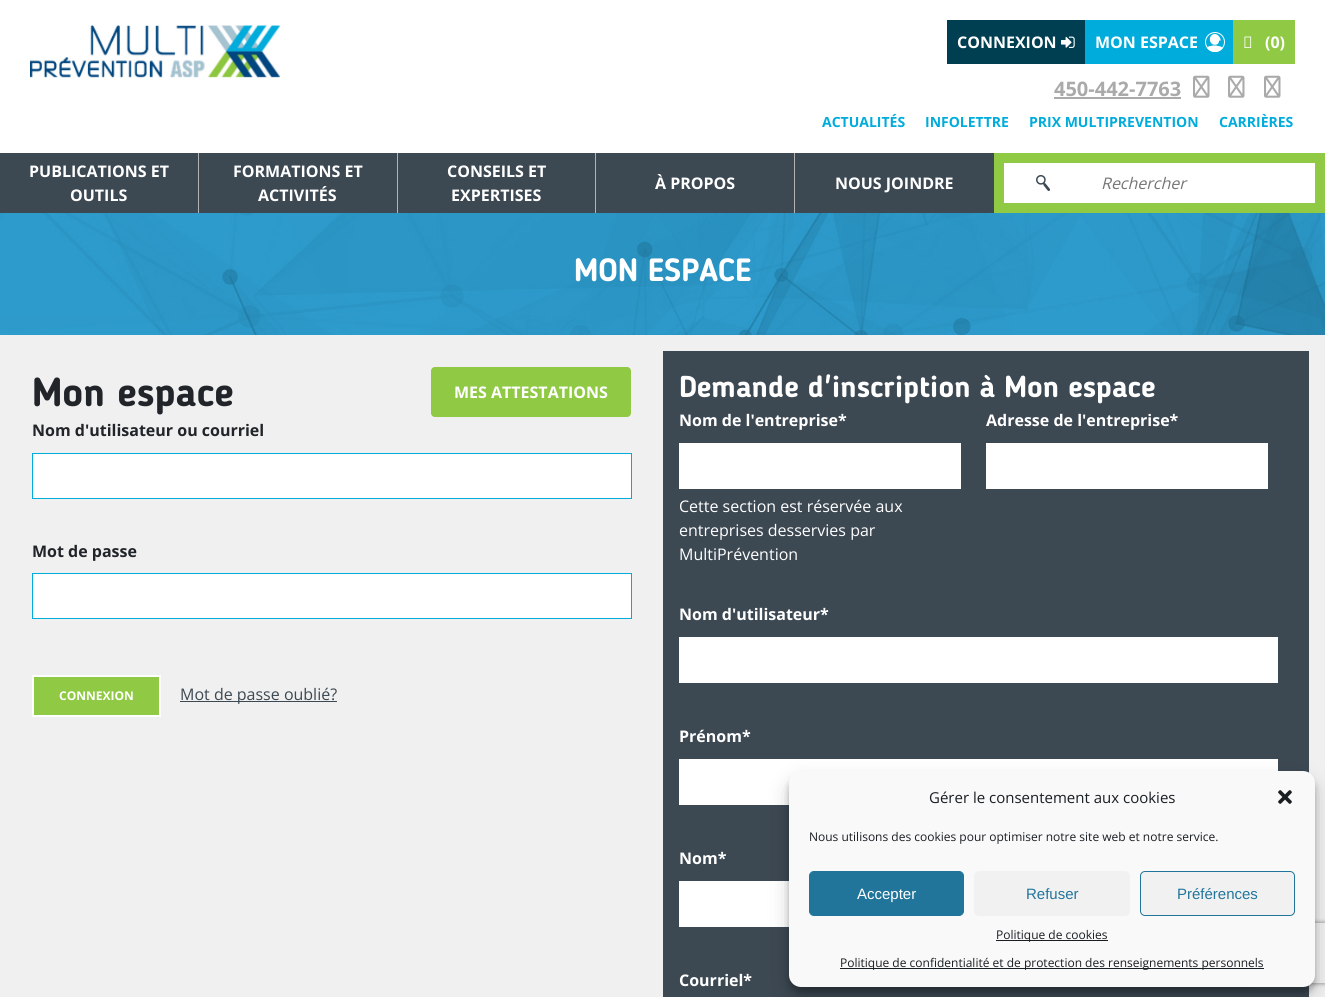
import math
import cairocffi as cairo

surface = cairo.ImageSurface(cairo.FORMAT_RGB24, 1325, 997)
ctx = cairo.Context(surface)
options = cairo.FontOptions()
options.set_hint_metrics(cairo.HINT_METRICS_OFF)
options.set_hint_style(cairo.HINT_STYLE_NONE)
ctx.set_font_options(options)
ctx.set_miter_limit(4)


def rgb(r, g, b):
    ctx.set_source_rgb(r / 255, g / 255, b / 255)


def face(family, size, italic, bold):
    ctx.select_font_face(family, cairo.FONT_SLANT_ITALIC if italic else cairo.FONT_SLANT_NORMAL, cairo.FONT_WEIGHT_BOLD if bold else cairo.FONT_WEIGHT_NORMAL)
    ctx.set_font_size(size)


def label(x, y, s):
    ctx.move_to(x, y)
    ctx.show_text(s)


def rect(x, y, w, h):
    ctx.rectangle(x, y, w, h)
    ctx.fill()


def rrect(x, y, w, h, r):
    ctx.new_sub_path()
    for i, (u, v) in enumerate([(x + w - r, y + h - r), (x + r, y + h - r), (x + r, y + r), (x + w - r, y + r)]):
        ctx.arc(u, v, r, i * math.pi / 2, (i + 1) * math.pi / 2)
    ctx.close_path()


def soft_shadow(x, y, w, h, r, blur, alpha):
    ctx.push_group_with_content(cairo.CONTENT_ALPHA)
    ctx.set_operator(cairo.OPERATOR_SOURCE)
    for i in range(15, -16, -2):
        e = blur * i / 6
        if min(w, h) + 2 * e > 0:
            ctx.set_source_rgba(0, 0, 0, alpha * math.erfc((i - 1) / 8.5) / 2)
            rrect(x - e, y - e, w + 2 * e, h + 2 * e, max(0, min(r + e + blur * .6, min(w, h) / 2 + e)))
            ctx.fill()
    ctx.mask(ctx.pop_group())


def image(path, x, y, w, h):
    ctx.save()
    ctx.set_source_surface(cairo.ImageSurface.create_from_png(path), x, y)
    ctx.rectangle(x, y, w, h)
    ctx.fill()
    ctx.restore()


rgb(255, 255, 255)
ctx.paint()
image('image0.png', 30, 25, 250, 53)
rgb(0, 63, 81)
rect(947, 20, 138, 44)
face('Open Sans', 16, 0, 1)
rgb(255, 255, 255)
label(957, 48, 'CONNEXION')
image('image1.png', 1061, 36, 14, 12)
rgb(0, 172, 220)
rect(1085, 20, 148, 44)
rgb(255, 255, 255)
label(1095, 48, 'MON ESPACE')
image('image2.png', 1206, 34, 17, 18)
ctx.arc(1215, 42, 9.5, 0, 2 * math.pi)
ctx.set_line_width(1)
ctx.stroke()
rgb(144, 202, 68)
rect(1233, 20, 62, 44)
image('image3.png', 1244, 36, 8, 12)
rgb(255, 255, 255)
label(1265, 48, '(0)')
face('Open Sans', 20, 0, 1)
rgb(170, 170, 170)
label(1054, 96, '450-442-7763')
rect(1054, 97, 127, 2)
image('image4.png', 1193, 75, 17, 23)
image('image4.png', 1228, 75, 17, 23)
image('image4.png', 1264, 75, 17, 23)
face('Open Sans', 14, 0, 1)
rgb(0, 172, 220)
label(822, 127, 'ACTUALITÉS')
label(925, 127, 'INFOLETTRE')
label(1029, 127, 'PRIX MULTIPREVENTION')
label(1219, 127, 'CARRIÈRES')
rgb(60, 72, 82)
rect(0, 153, 198, 60)
rgb(179, 179, 179)
rect(198, 153, 1, 60)
face('Open Sans', 16, 0, 1)
rgb(255, 255, 255)
label(29, 177, 'PUBLICATIONS ET')
label(70, 201, 'OUTILS')
rgb(60, 72, 82)
rect(199, 153, 198, 60)
rgb(179, 179, 179)
rect(397, 153, 1, 60)
rgb(255, 255, 255)
label(233, 177, 'FORMATIONS ET')
label(258, 201, 'ACTIVITÉS')
rgb(60, 72, 82)
rect(398, 153, 197, 60)
rgb(179, 179, 179)
rect(595, 153, 1, 60)
rgb(255, 255, 255)
label(447, 177, 'CONSEILS ET')
label(451, 201, 'EXPERTISES')
rgb(60, 72, 82)
rect(596, 153, 198, 60)
rgb(179, 179, 179)
rect(794, 153, 1, 60)
rgb(255, 255, 255)
label(655, 189, 'À PROPOS')
rgb(60, 72, 82)
rect(795, 153, 199, 60)
rgb(255, 255, 255)
label(835, 189, 'NOUS JOINDRE')
rgb(144, 202, 68)
rect(994, 153, 331, 60)
rgb(255, 255, 255)
rect(1004, 163, 311, 40)
image('image5.png', 1036, 175, 14, 16)
face('Open Sans', 16, 1, 0)
rgb(117, 117, 117)
label(1101, 189, 'Rechercher')
rgb(240, 240, 240)
rect(0, 335, 1325, 662)
image('image6.png', 0, 213, 1325, 122)
face('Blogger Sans', 32, 0, 1)
rgb(255, 255, 255)
label(574, 281, 'MON ESPACE')
face('Blogger Sans', 40, 0, 1)
rgb(33, 37, 41)
label(32, 406, 'Mon espace')
rgb(144, 202, 68)
rrect(431, 367, 200, 50, 4)
ctx.fill()
face('Open Sans', 16, 0, 1)
rgb(255, 255, 255)
label(454, 398, 'MES ATTESTATIONS')
rgb(33, 37, 41)
label(32, 436, 'Nom d\'utilisateur ou courriel')
rgb(255, 255, 255)
ctx.rectangle(32.5, 453.5, 599, 45)
ctx.fill_preserve()
rgb(0, 172, 220)
ctx.stroke()
rgb(33, 37, 41)
label(32, 557, 'Mot de passe')
rgb(255, 255, 255)
ctx.rectangle(32.5, 573.5, 599, 45)
ctx.fill_preserve()
rgb(0, 172, 220)
ctx.stroke()
rgb(144, 202, 68)
ctx.rectangle(33, 676, 127, 40)
ctx.fill_preserve()
rgb(255, 255, 255)
ctx.set_line_width(2)
ctx.stroke()
face('Open Sans', 12, 0, 1)
label(59, 700, 'CONNEXION')
rgb(60, 72, 82)
rect(180, 701, 157, 1)
face('Open Sans', 16, 0, 0)
label(180, 700, 'Mot de passe oublié?')
rect(663, 351, 646, 646)
face('Blogger Sans', 30, 0, 1)
rgb(255, 255, 255)
label(679, 397, 'Demande d\'inscription à Mon espace')
face('Open Sans', 16, 0, 1)
label(679, 426, 'Nom de l\'entreprise*')
rect(679, 443, 282, 46)
face('Open Sans', 16, 0, 0)
label(679, 512, 'Cette section est réservée aux')
label(679, 536, 'entreprises desservies par')
label(679, 560, 'MultiPrévention')
face('Open Sans', 16, 0, 1)
label(986, 426, 'Adresse de l\'entreprise*')
rect(986, 443, 282, 46)
label(679, 620, 'Nom d\'utilisateur*')
rect(679, 637, 599, 46)
label(679, 742, 'Prénom*')
rect(679, 759, 599, 46)
label(679, 864, 'Nom*')
rect(679, 881, 110, 46)
label(679, 986, 'Courriel*')
ctx.save()
ctx.set_fill_rule(cairo.FILL_RULE_EVEN_ODD)
ctx.new_path()
ctx.move_to(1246, 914)
ctx.line_to(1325, 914)
ctx.line_to(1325, 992)
ctx.line_to(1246, 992)
ctx.close_path()
ctx.move_to(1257, 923)
ctx.line_to(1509, 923)
ctx.curve_to(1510, 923, 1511, 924, 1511, 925)
ctx.line_to(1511, 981)
ctx.curve_to(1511, 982, 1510, 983, 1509, 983)
ctx.line_to(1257, 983)
ctx.curve_to(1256, 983, 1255, 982, 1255, 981)
ctx.line_to(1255, 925)
ctx.curve_to(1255, 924, 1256, 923, 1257, 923)
ctx.close_path()
ctx.clip()
rgb(128, 128, 128)
soft_shadow(1255, 923, 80, 60, 2, 2.5, 1)
ctx.restore()
rgb(0, 0, 0)
soft_shadow(789, 777, 526, 216, 12, 3, 0.23)
soft_shadow(789, 781, 526, 216, 12, 10, 0.19)
rgb(249, 249, 249)
rrect(789, 771, 526, 216, 12)
ctx.fill()
face('Open Sans', 15, 0, 0)
rgb(25, 30, 35)
label(929, 803, 'Gérer le consentement aux cookies')
image('image7.png', 1278, 790, 14, 14)
face('Open Sans', 12, 0, 0)
label(809, 841, 'Nous utilisons des cookies pour optimiser notre site web et notre service.')
rgb(33, 117, 155)
rrect(809.5, 871.5, 154, 44, 4.5)
ctx.fill_preserve()
ctx.set_line_width(1)
ctx.stroke()
face('Liberation Sans', 15, 0, 0)
rgb(255, 255, 255)
label(857, 899, 'Accepter')
rgb(241, 241, 241)
rrect(974, 871, 156, 45, 5)
ctx.fill()
rgb(33, 117, 155)
label(1026, 899, 'Refuser')
rgb(241, 241, 241)
rrect(1140.5, 871.5, 154, 44, 4.5)
ctx.fill_preserve()
rgb(33, 117, 155)
ctx.stroke()
label(1177, 899, 'Préférences')
rgb(25, 30, 35)
rect(996, 940, 112, 1)
face('Open Sans', 12, 0, 0)
label(996, 939, 'Politique de cookies')
rect(840, 968, 424, 1)
label(840, 967, 'Politique de confidentialité et de protection des renseignements personnels')
surface.write_to_png('render.png')
